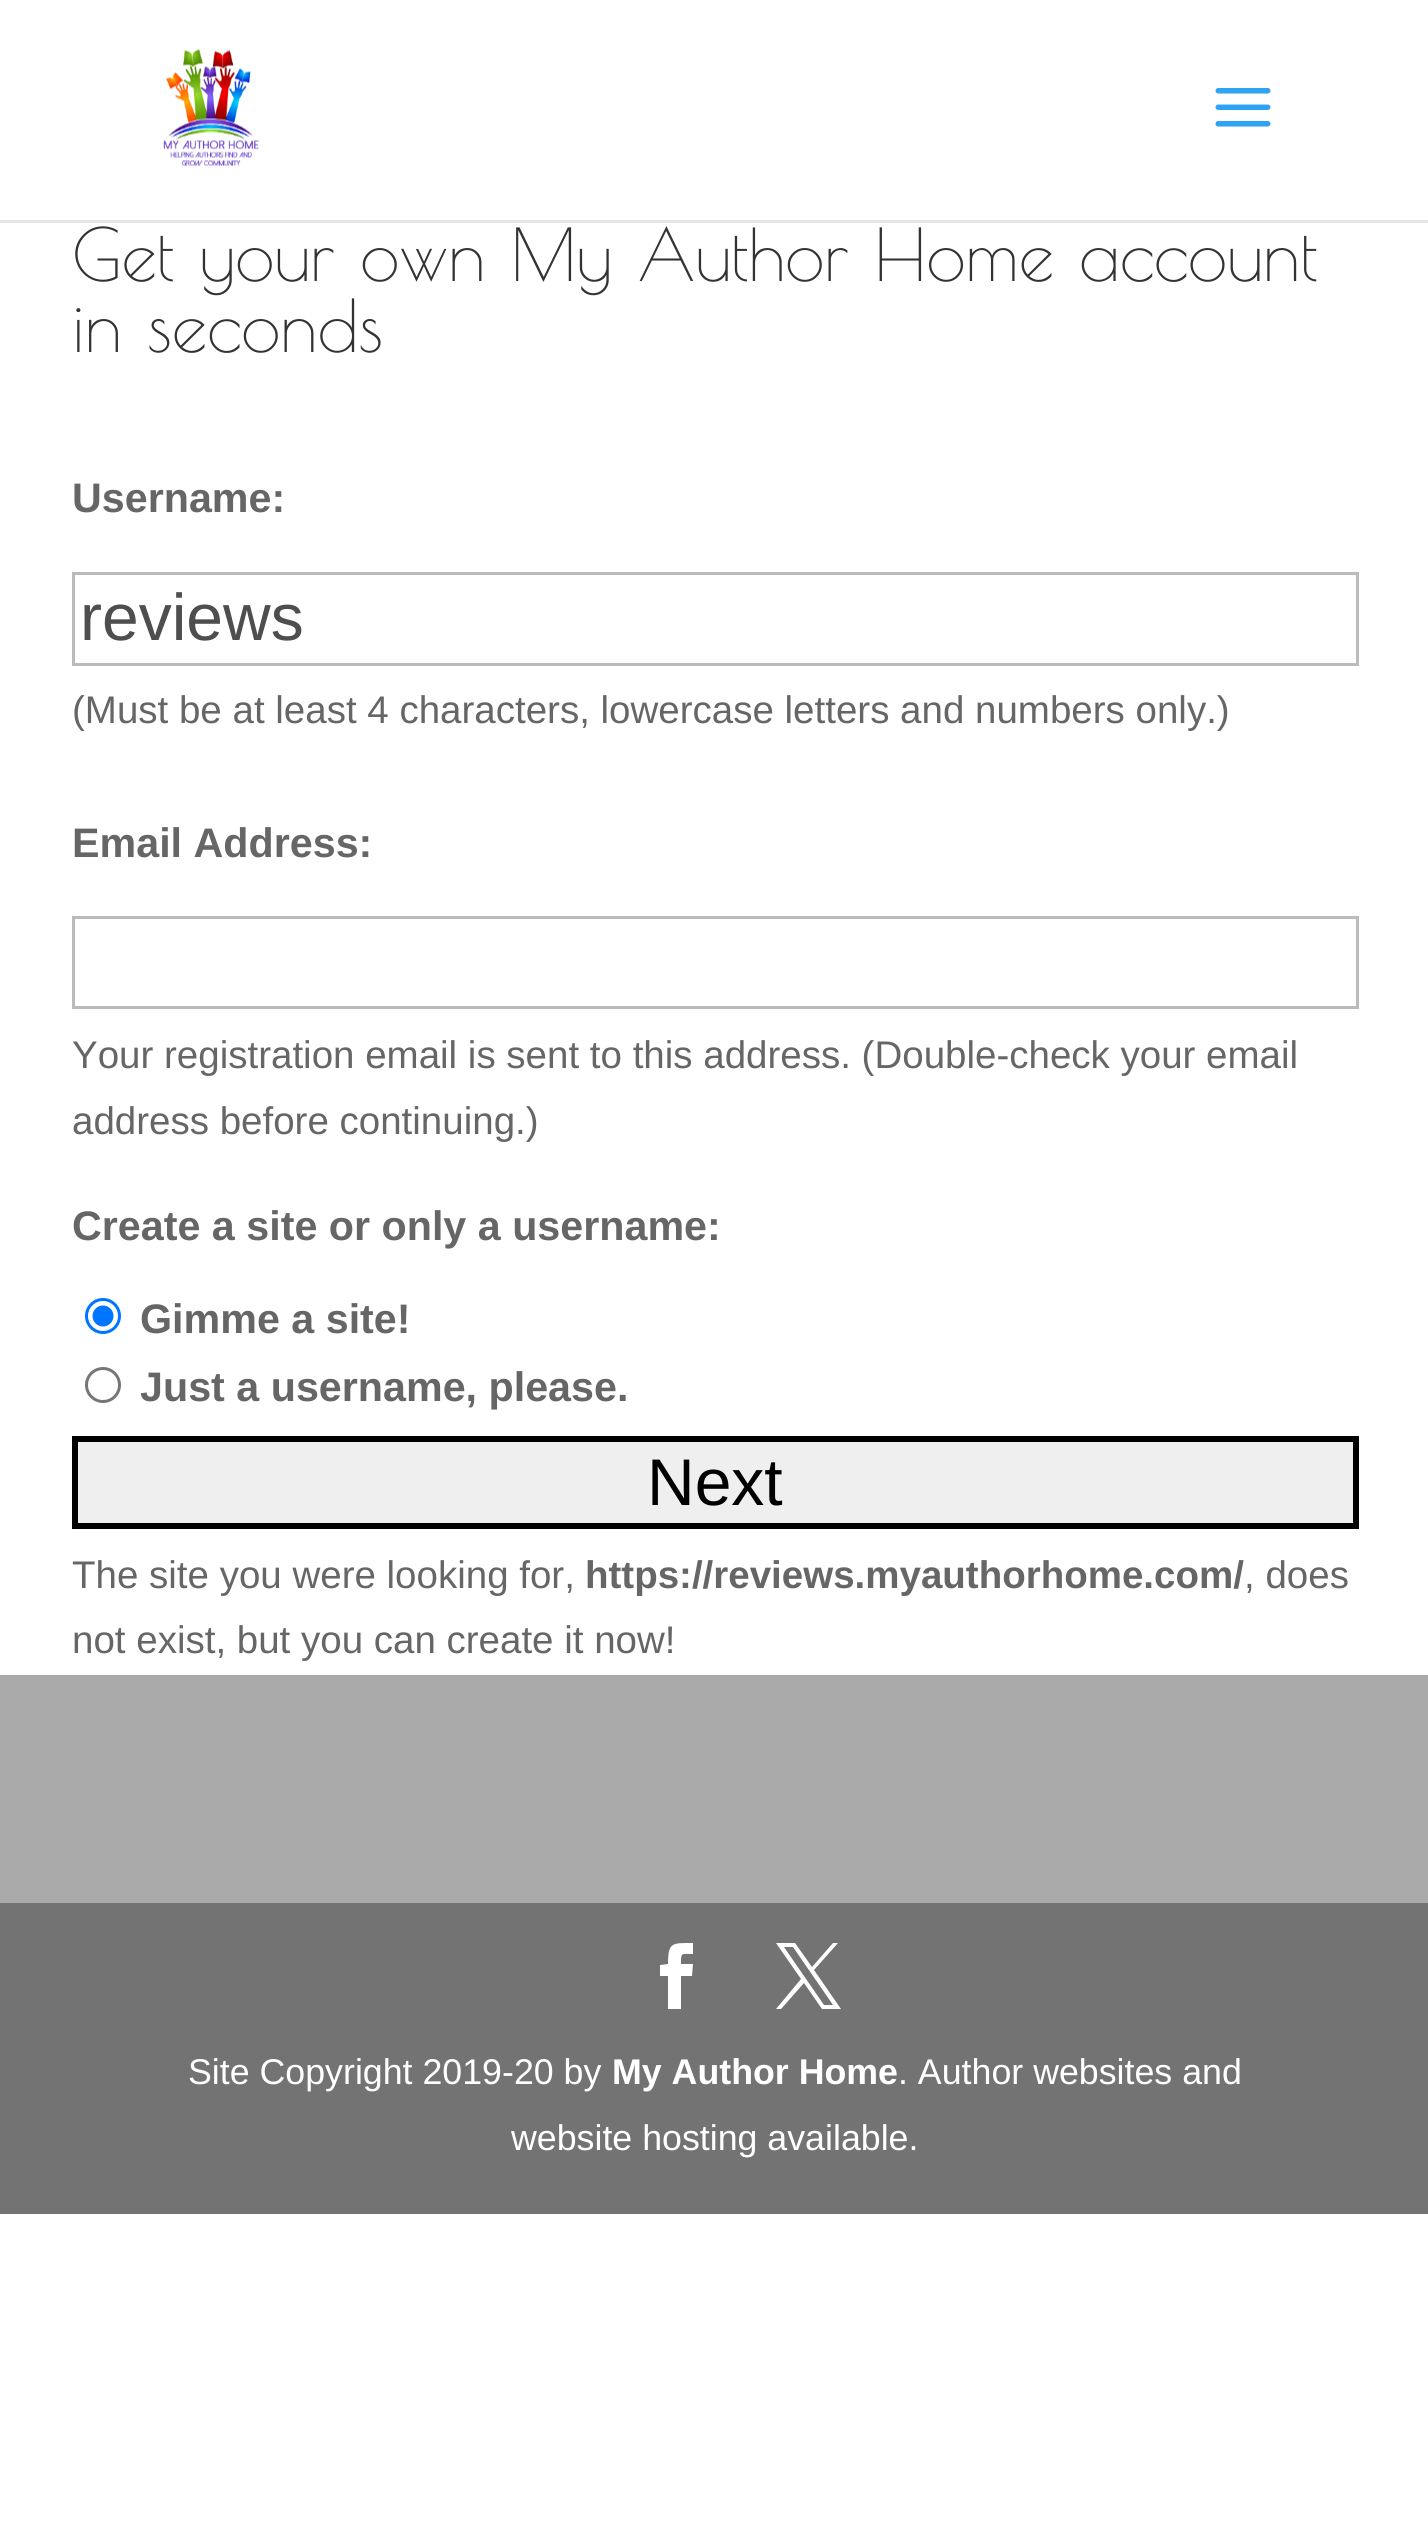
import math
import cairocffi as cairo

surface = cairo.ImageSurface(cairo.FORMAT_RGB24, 1428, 2537)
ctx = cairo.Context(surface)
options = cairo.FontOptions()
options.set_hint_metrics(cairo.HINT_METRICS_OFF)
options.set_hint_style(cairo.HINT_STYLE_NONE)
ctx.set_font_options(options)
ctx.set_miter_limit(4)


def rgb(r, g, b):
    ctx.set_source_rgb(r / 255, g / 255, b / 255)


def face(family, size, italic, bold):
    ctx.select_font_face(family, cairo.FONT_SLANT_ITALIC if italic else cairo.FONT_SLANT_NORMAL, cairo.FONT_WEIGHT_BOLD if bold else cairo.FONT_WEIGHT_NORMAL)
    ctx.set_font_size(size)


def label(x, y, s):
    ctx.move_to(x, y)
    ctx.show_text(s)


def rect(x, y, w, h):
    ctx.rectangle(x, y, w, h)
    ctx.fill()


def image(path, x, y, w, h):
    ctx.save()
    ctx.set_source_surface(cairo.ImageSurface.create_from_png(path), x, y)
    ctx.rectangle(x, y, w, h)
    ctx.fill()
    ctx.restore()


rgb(255, 255, 255)
ctx.paint()
rgb(230, 230, 230)
rect(0, 220, 1428, 3)
image('image0.png', 163, 49, 96, 118)
image('image1.png', 1215, 88, 56, 39)
face('Poiret One', 71.5, 0, 0)
rgb(51, 51, 51)
label(72, 281, 'Get your own My Author Home account')
label(72, 352, 'in seconds')
face('Liberation Sans', 41.25, 0, 1)
rgb(102, 102, 102)
label(72, 512, 'Username:')
ctx.rectangle(73.5, 573.5, 1284, 91)
rgb(187, 187, 187)
ctx.set_line_width(3)
ctx.stroke()
face('Liberation Sans', 66, 0, 0)
rgb(78, 78, 78)
label(80, 640, 'reviews')
face('Liberation Sans', 38.5, 0, 0)
rgb(102, 102, 102)
label(72, 723, '(Must be at least 4 characters, lowercase letters and numbers only.)')
face('Liberation Sans', 41.25, 0, 1)
label(72, 857, 'Email Address:')
ctx.rectangle(73.5, 917.5, 1284, 90)
rgb(187, 187, 187)
ctx.stroke()
face('Liberation Sans', 38.5, 0, 0)
rgb(102, 102, 102)
label(72, 1068, 'Your registration email is sent to this address. (Double-check your email')
label(72, 1134, 'address before continuing.)')
face('Liberation Sans', 41.25, 0, 1)
label(72, 1240, 'Create a site or only a username:')
ctx.new_path()
ctx.arc(103, 1316, 16.5, 0, 2 * math.pi)
rgb(0, 117, 255)
ctx.stroke()
ctx.arc(103, 1316, 10.5, 0, 2 * math.pi)
ctx.fill()
rgb(102, 102, 102)
label(140, 1333, 'Gimme a site!')
ctx.new_path()
ctx.arc(103, 1385, 16.5, 0, 2 * math.pi)
rgb(118, 118, 118)
ctx.stroke()
rgb(102, 102, 102)
label(140, 1401, 'Just a username, please.')
rgb(239, 239, 239)
ctx.rectangle(75, 1439, 1281, 87)
ctx.fill_preserve()
rgb(0, 0, 0)
ctx.set_line_width(6)
ctx.stroke()
face('Liberation Sans', 66, 0, 0)
label(647, 1505, 'Next')
face('Liberation Sans', 38.5, 0, 0)
rgb(102, 102, 102)
label(72, 1588, 'The site you were looking for,')
face('Liberation Sans', 38.5, 0, 1)
label(585, 1588, 'https://reviews.myauthorhome.com/')
face('Liberation Sans', 38.5, 0, 0)
label(1244, 1588, ', does')
label(72, 1653, 'not exist, but you can create it now!')
rgb(170, 170, 170)
rect(0, 1675, 1428, 228)
rgb(115, 115, 115)
rect(0, 1903, 1428, 311)
rgb(255, 255, 255)
ctx.new_path()
ctx.move_to(668, 2009)
ctx.line_to(681, 2009)
ctx.line_to(681, 1976)
ctx.line_to(692, 1976)
ctx.line_to(693, 1964)
ctx.line_to(681, 1964)
ctx.curve_to(681, 1952, 681, 1954, 693, 1954)
ctx.line_to(693, 1943)
ctx.curve_to(672, 1943, 668, 1942, 668, 1964)
ctx.line_to(660, 1965)
ctx.line_to(660, 1976)
ctx.line_to(668, 1976)
ctx.close_path()
ctx.fill()
ctx.new_path()
ctx.move_to(776, 1943)
ctx.line_to(801, 1979)
ctx.line_to(776, 2009)
ctx.line_to(781, 2009)
ctx.line_to(804, 1983)
ctx.line_to(822, 2009)
ctx.line_to(841, 2009)
ctx.line_to(814, 1970)
ctx.line_to(838, 1943)
ctx.line_to(833, 1943)
ctx.line_to(812, 1967)
ctx.line_to(795, 1943)
ctx.close_path()
ctx.move_to(784, 1947)
ctx.line_to(793, 1947)
ctx.line_to(833, 2005)
ctx.line_to(824, 2005)
ctx.close_path()
ctx.fill()
face('Liberation Sans', 35.75, 0, 0)
label(188, 2084, 'Site Copyright 2019-20 by')
face('Liberation Sans', 35.75, 0, 1)
label(612, 2084, 'My Author Home')
face('Liberation Sans', 35.75, 0, 0)
label(898, 2084, '. Author websites and')
label(511, 2150, 'website hosting available.')
surface.write_to_png('render.png')
